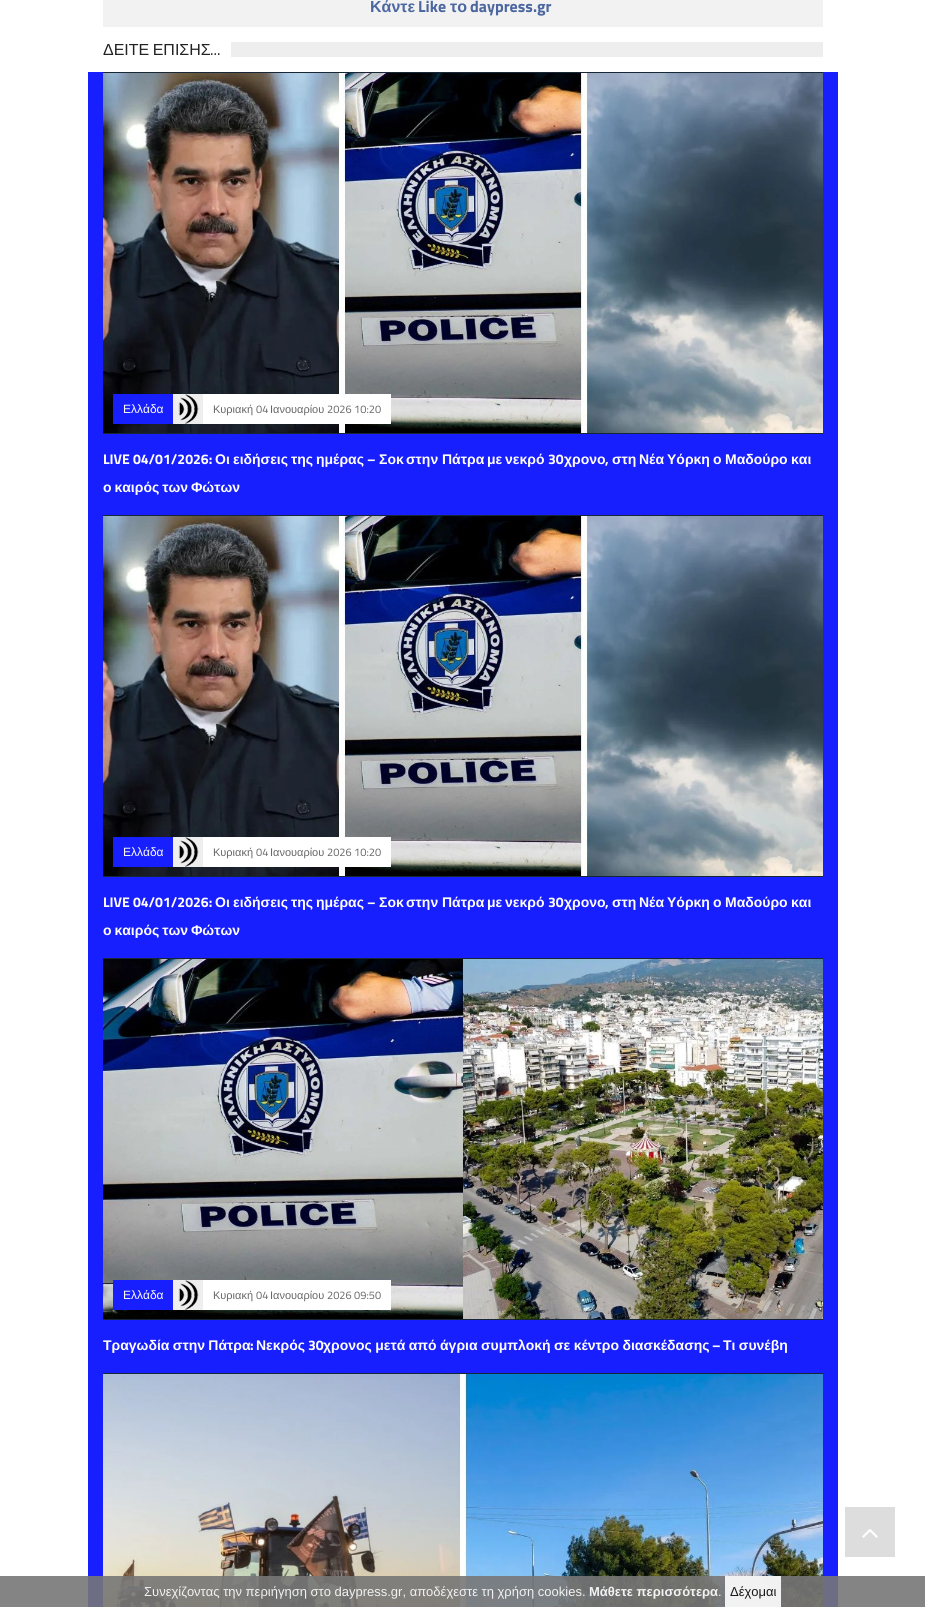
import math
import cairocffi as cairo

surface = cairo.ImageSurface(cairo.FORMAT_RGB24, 925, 1607)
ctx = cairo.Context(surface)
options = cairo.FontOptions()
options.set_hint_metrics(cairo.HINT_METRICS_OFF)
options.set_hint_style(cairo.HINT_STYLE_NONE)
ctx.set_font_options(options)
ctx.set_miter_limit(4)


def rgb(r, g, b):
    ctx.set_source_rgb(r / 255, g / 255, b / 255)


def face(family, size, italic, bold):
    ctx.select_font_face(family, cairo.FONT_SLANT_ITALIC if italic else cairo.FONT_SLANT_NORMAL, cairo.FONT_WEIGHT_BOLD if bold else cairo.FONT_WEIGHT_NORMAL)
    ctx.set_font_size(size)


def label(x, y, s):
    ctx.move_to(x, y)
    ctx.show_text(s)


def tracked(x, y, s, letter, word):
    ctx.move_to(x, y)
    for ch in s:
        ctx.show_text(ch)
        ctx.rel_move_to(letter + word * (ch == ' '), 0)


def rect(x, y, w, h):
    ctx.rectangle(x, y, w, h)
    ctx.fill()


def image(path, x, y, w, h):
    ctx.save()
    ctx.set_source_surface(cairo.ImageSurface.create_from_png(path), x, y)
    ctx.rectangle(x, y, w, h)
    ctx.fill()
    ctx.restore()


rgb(255, 255, 255)
ctx.paint()
rgb(242, 242, 242)
rect(103, 0, 720, 27)
face('Liberation Sans', 16, 0, 1)
rgb(76, 103, 160)
label(370, 12, 'Κάντε')
face('Titillium Web', 16, 0, 1)
label(418, 12, 'Like')
face('Liberation Sans', 16, 0, 1)
label(450, 12, 'το')
face('Titillium Web', 16, 0, 1)
label(470, 12, 'daypress.gr')
rgb(238, 238, 238)
rect(231, 42, 592, 15)
face('Liberation Sans', 16, 0, 0)
rgb(34, 34, 34)
tracked(103, 55, 'ΔΕΙΤΕ ΕΠΙΣΗΣ', 0, -1)
face('Titillium Web', 16, 0, 0)
label(210, 55, '...')
rgb(23, 31, 255)
rect(88, 72, 750, 1535)
rgb(23, 39, 54)
rect(103, 72, 720, 1)
image('image0.png', 103, 73, 720, 360)
rect(103, 433, 720, 1)
rgb(23, 31, 255)
rect(113, 394, 60, 30)
face('Liberation Sans', 12, 0, 0)
rgb(255, 255, 255)
label(123, 413, 'Ελλάδα')
rect(203, 394, 188, 30)
rgb(238, 238, 238)
rect(173, 394, 30, 30)
image('image1.png', 178, 394, 21, 30)
face('Liberation Sans', 11, 0, 0)
rgb(102, 102, 102)
label(213, 413, 'Κυριακή')
face('Titillium Web', 11, 0, 0)
label(256, 413, '04')
face('Liberation Sans', 11, 0, 0)
label(270, 413, 'Ιανουαρίου')
face('Titillium Web', 11, 0, 0)
label(327, 413, '2026 10:20')
face('Titillium Web', 14, 0, 1)
rgb(255, 255, 255)
label(103, 464, 'LIVE 04/01/2026:')
face('Liberation Sans', 14, 0, 1)
label(215, 464, 'Οι')
label(233, 464, 'ειδήσεις')
label(291, 464, 'της')
label(316, 464, 'ημέρας')
face('Titillium Web', 14, 0, 1)
label(367, 464, '–')
face('Liberation Sans', 14, 0, 1)
label(379, 464, 'Σοκ')
label(406, 464, 'στην')
label(442, 464, 'Πάτρα')
label(487, 464, 'με')
label(505, 464, 'νεκρό')
face('Titillium Web', 14, 0, 1)
label(548, 464, '30')
face('Liberation Sans', 14, 0, 1)
label(564, 464, 'χρονο')
label(612, 464, 'στη')
label(639, 464, 'Νέα')
label(667, 464, 'Υόρκη')
label(713, 464, 'ο')
label(725, 464, 'Μαδούρο')
label(791, 464, 'και')
face('Titillium Web', 14, 0, 1)
label(605, 464, ',')
face('Liberation Sans', 14, 0, 1)
tracked(103, 492, 'ο καιρός των Φώτων', 0, -1)
rgb(23, 39, 54)
rect(103, 515, 720, 1)
image('image2.png', 103, 516, 720, 360)
rect(103, 876, 720, 1)
rgb(23, 31, 255)
rect(113, 837, 60, 30)
face('Liberation Sans', 12, 0, 0)
rgb(255, 255, 255)
label(123, 856, 'Ελλάδα')
rect(203, 837, 188, 30)
rgb(238, 238, 238)
rect(173, 837, 30, 30)
image('image1.png', 178, 837, 21, 30)
face('Liberation Sans', 11, 0, 0)
rgb(102, 102, 102)
label(213, 856, 'Κυριακή')
face('Titillium Web', 11, 0, 0)
label(256, 856, '04')
face('Liberation Sans', 11, 0, 0)
label(270, 856, 'Ιανουαρίου')
face('Titillium Web', 11, 0, 0)
label(327, 856, '2026 10:20')
face('Titillium Web', 14, 0, 1)
rgb(255, 255, 255)
label(103, 907, 'LIVE 04/01/2026:')
face('Liberation Sans', 14, 0, 1)
label(215, 907, 'Οι')
label(233, 907, 'ειδήσεις')
label(291, 907, 'της')
label(316, 907, 'ημέρας')
face('Titillium Web', 14, 0, 1)
label(367, 907, '–')
face('Liberation Sans', 14, 0, 1)
label(379, 907, 'Σοκ')
label(406, 907, 'στην')
label(442, 907, 'Πάτρα')
label(487, 907, 'με')
label(505, 907, 'νεκρό')
face('Titillium Web', 14, 0, 1)
label(548, 907, '30')
face('Liberation Sans', 14, 0, 1)
label(564, 907, 'χρονο')
label(612, 907, 'στη')
label(639, 907, 'Νέα')
label(667, 907, 'Υόρκη')
label(713, 907, 'ο')
label(725, 907, 'Μαδούρο')
label(791, 907, 'και')
face('Titillium Web', 14, 0, 1)
label(605, 907, ',')
face('Liberation Sans', 14, 0, 1)
tracked(103, 935, 'ο καιρός των Φώτων', 0, -1)
rgb(23, 39, 54)
rect(103, 958, 720, 1)
image('image3.png', 103, 959, 720, 360)
rect(103, 1319, 720, 1)
rgb(23, 31, 255)
rect(113, 1280, 60, 30)
face('Liberation Sans', 12, 0, 0)
rgb(255, 255, 255)
label(123, 1299, 'Ελλάδα')
rect(203, 1280, 188, 30)
rgb(238, 238, 238)
rect(173, 1280, 30, 30)
image('image1.png', 178, 1280, 21, 30)
face('Liberation Sans', 11, 0, 0)
rgb(102, 102, 102)
label(213, 1299, 'Κυριακή')
face('Titillium Web', 11, 0, 0)
label(256, 1299, '04')
face('Liberation Sans', 11, 0, 0)
label(270, 1299, 'Ιανουαρίου')
face('Titillium Web', 11, 0, 0)
label(327, 1299, '2026 09:50')
face('Liberation Sans', 14, 0, 1)
rgb(255, 255, 255)
tracked(103, 1350, 'Τραγωδία στην Πάτρα', 0, -0.5)
face('Titillium Web', 14, 0, 1)
label(250, 1350, ':')
face('Liberation Sans', 14, 0, 1)
label(256, 1350, 'Νεκρός')
face('Titillium Web', 14, 0, 1)
label(308, 1350, '30')
face('Liberation Sans', 14, 0, 1)
tracked(323, 1350, 'χρονος μετά από άγρια συμπλοκή σε κέντρο διασκέδασης', 0, -0.5)
face('Titillium Web', 14, 0, 1)
label(712, 1350, '–')
face('Liberation Sans', 14, 0, 1)
tracked(723, 1350, 'Τι συνέβη', 0, -0.5)
rgb(23, 39, 54)
rect(103, 1373, 720, 1)
image('image4.png', 103, 1374, 720, 233)
rgb(221, 221, 221)
rect(845, 1507, 50, 50)
image('image5.png', 862, 1529, 16, 9)
ctx.set_source_rgba(0.467, 0.467, 0.467, 0.9)
rect(0, 1576, 925, 31)
face('Liberation Sans', 13, 0, 0)
rgb(242, 242, 242)
label(144, 1596, 'Συνεχίζοντας την περιήγηση στο daypress.gr, αποδέχεστε τη χρήση cookies.')
face('Liberation Sans', 13, 0, 1)
label(589, 1596, 'Μάθετε περισσότερα')
face('Liberation Sans', 13, 0, 0)
label(718, 1596, '.')
ctx.set_source_rgba(1, 1, 1, 0.9)
rect(725, 1576, 56, 31)
rgb(24, 24, 24)
label(730, 1596, 'Δέχομαι')
surface.write_to_png('render.png')
